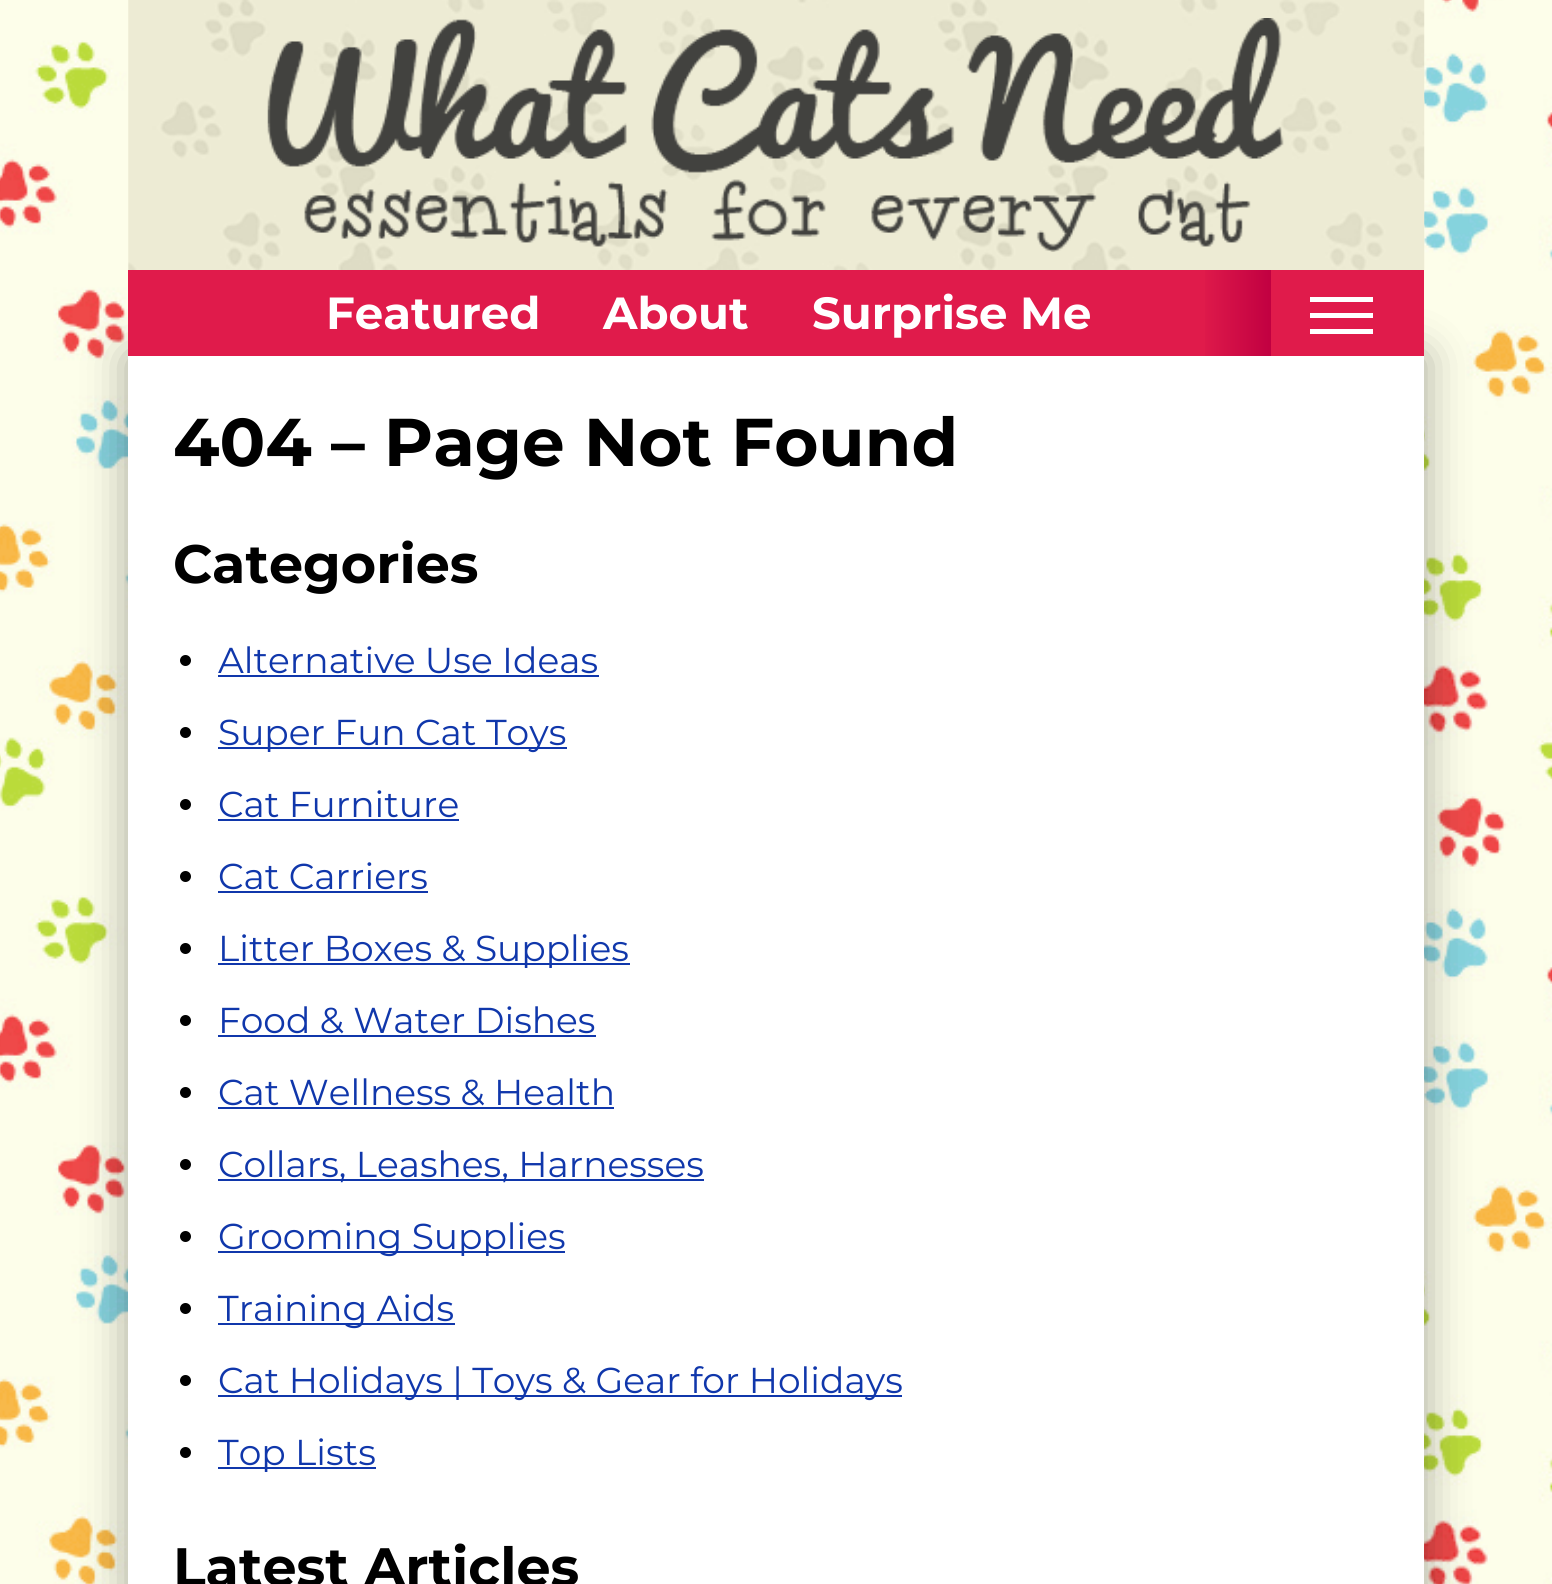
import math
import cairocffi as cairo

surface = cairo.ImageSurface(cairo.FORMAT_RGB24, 1552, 1584)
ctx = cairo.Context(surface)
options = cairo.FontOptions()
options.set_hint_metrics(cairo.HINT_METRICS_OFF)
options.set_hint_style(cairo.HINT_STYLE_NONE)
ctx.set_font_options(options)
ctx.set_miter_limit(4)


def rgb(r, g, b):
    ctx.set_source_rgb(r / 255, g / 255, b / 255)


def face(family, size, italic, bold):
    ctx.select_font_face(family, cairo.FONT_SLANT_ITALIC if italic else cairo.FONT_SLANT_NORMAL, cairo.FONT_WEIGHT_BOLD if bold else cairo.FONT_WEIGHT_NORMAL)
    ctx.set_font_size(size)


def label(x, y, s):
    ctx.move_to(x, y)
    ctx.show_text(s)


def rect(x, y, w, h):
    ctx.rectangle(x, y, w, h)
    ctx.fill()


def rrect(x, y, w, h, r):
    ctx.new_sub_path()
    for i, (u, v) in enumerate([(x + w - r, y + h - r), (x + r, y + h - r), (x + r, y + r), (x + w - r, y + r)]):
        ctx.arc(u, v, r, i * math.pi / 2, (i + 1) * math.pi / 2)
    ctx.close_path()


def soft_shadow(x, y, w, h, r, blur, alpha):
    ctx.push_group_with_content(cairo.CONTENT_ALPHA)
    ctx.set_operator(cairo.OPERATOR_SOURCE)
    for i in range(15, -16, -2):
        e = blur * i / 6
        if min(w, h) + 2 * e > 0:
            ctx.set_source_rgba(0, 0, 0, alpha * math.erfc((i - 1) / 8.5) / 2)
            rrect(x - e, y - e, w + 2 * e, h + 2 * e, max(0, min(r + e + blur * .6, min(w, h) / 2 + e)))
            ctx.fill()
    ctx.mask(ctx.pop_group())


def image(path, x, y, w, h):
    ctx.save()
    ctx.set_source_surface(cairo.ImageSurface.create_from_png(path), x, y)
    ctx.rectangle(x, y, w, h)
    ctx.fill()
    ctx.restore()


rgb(255, 255, 255)
ctx.paint()
image('image0.png', 0, 0, 1552, 1584)
image('image1.png', 128, 0, 1297, 270)
image('image2.png', 267, 18, 1017, 234)
rgb(0, 0, 0)
soft_shadow(128, 356, 1296, 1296, 0, 22.5, 0.35)
rgb(224, 27, 75)
rect(128, 270, 1296, 86)
face('Montserrat', 45, 0, 1)
rgb(255, 255, 255)
label(326, 329, 'Featured')
label(603, 329, 'About')
label(812, 329, 'Surprise Me')
gradient = cairo.LinearGradient(1199, 313, 1271, 313)
gradient.add_color_stop_rgba(0, 0.878, 0.106, 0.294, 1)
gradient.add_color_stop_rgba(1, 0.757, 0, 0.255, 1)
ctx.set_source(gradient)
rect(1205, 270, 66, 86)
rgb(255, 255, 255)
rect(1310, 297, 63, 5)
rect(1310, 313, 63, 5)
rect(1310, 329, 63, 5)
rect(128, 356, 1296, 1228)
face('Montserrat', 67.5, 0, 1)
rgb(0, 0, 0)
label(173, 466, '404 – Page Not Found')
face('Montserrat', 54, 0, 1)
label(173, 583, 'Categories')
ctx.new_path()
ctx.arc(185.5, 660.5, 5.5, 0, 2 * math.pi)
ctx.fill()
face('Montserrat', 36, 0, 0)
rgb(16, 55, 171)
label(218, 673, 'Alternative Use Ideas')
rect(218, 675, 381, 2)
rgb(0, 0, 0)
ctx.new_path()
ctx.arc(185.5, 732.5, 5.5, 0, 2 * math.pi)
ctx.fill()
rgb(16, 55, 171)
rect(218, 747, 349, 2)
label(218, 745, 'Super Fun Cat Toys')
rgb(0, 0, 0)
ctx.new_path()
ctx.arc(185.5, 804.5, 5.5, 0, 2 * math.pi)
ctx.fill()
rgb(16, 55, 171)
label(218, 817, 'Cat Furniture')
rect(218, 819, 241, 2)
rgb(0, 0, 0)
ctx.new_path()
ctx.arc(185.5, 876.5, 5.5, 0, 2 * math.pi)
ctx.fill()
rgb(16, 55, 171)
label(218, 889, 'Cat Carriers')
rect(218, 891, 210, 2)
rgb(0, 0, 0)
ctx.new_path()
ctx.arc(185.5, 948.5, 5.5, 0, 2 * math.pi)
ctx.fill()
rgb(16, 55, 171)
rect(218, 963, 412, 2)
label(218, 961, 'Litter Boxes & Supplies')
rgb(0, 0, 0)
ctx.new_path()
ctx.arc(185.5, 1020.5, 5.5, 0, 2 * math.pi)
ctx.fill()
rgb(16, 55, 171)
label(218, 1033, 'Food & Water Dishes')
rect(218, 1035, 378, 2)
rgb(0, 0, 0)
ctx.new_path()
ctx.arc(185.5, 1092.5, 5.5, 0, 2 * math.pi)
ctx.fill()
rgb(16, 55, 171)
label(218, 1105, 'Cat Wellness & Health')
rect(218, 1107, 396, 2)
rgb(0, 0, 0)
ctx.new_path()
ctx.arc(185.5, 1164.5, 5.5, 0, 2 * math.pi)
ctx.fill()
rgb(16, 55, 171)
rect(218, 1179, 486, 2)
label(218, 1177, 'Collars, Leashes, Harnesses')
rgb(0, 0, 0)
ctx.new_path()
ctx.arc(185.5, 1236.5, 5.5, 0, 2 * math.pi)
ctx.fill()
rgb(16, 55, 171)
rect(218, 1251, 347, 2)
label(218, 1249, 'Grooming Supplies')
rgb(0, 0, 0)
ctx.new_path()
ctx.arc(185.5, 1308.5, 5.5, 0, 2 * math.pi)
ctx.fill()
rgb(16, 55, 171)
rect(218, 1323, 237, 2)
label(218, 1321, 'Training Aids')
rgb(0, 0, 0)
ctx.new_path()
ctx.arc(185.5, 1380.5, 5.5, 0, 2 * math.pi)
ctx.fill()
rgb(16, 55, 171)
rect(218, 1395, 684, 2)
label(218, 1393, 'Cat Holidays | Toys & Gear for Holidays')
rgb(0, 0, 0)
ctx.new_path()
ctx.arc(185.5, 1452.5, 5.5, 0, 2 * math.pi)
ctx.fill()
rgb(16, 55, 171)
rect(218, 1467, 158, 2)
label(218, 1465, 'Top Lists')
face('Montserrat', 54, 0, 1)
rgb(0, 0, 0)
label(173, 1586, 'Latest Articles')
surface.write_to_png('render.png')
